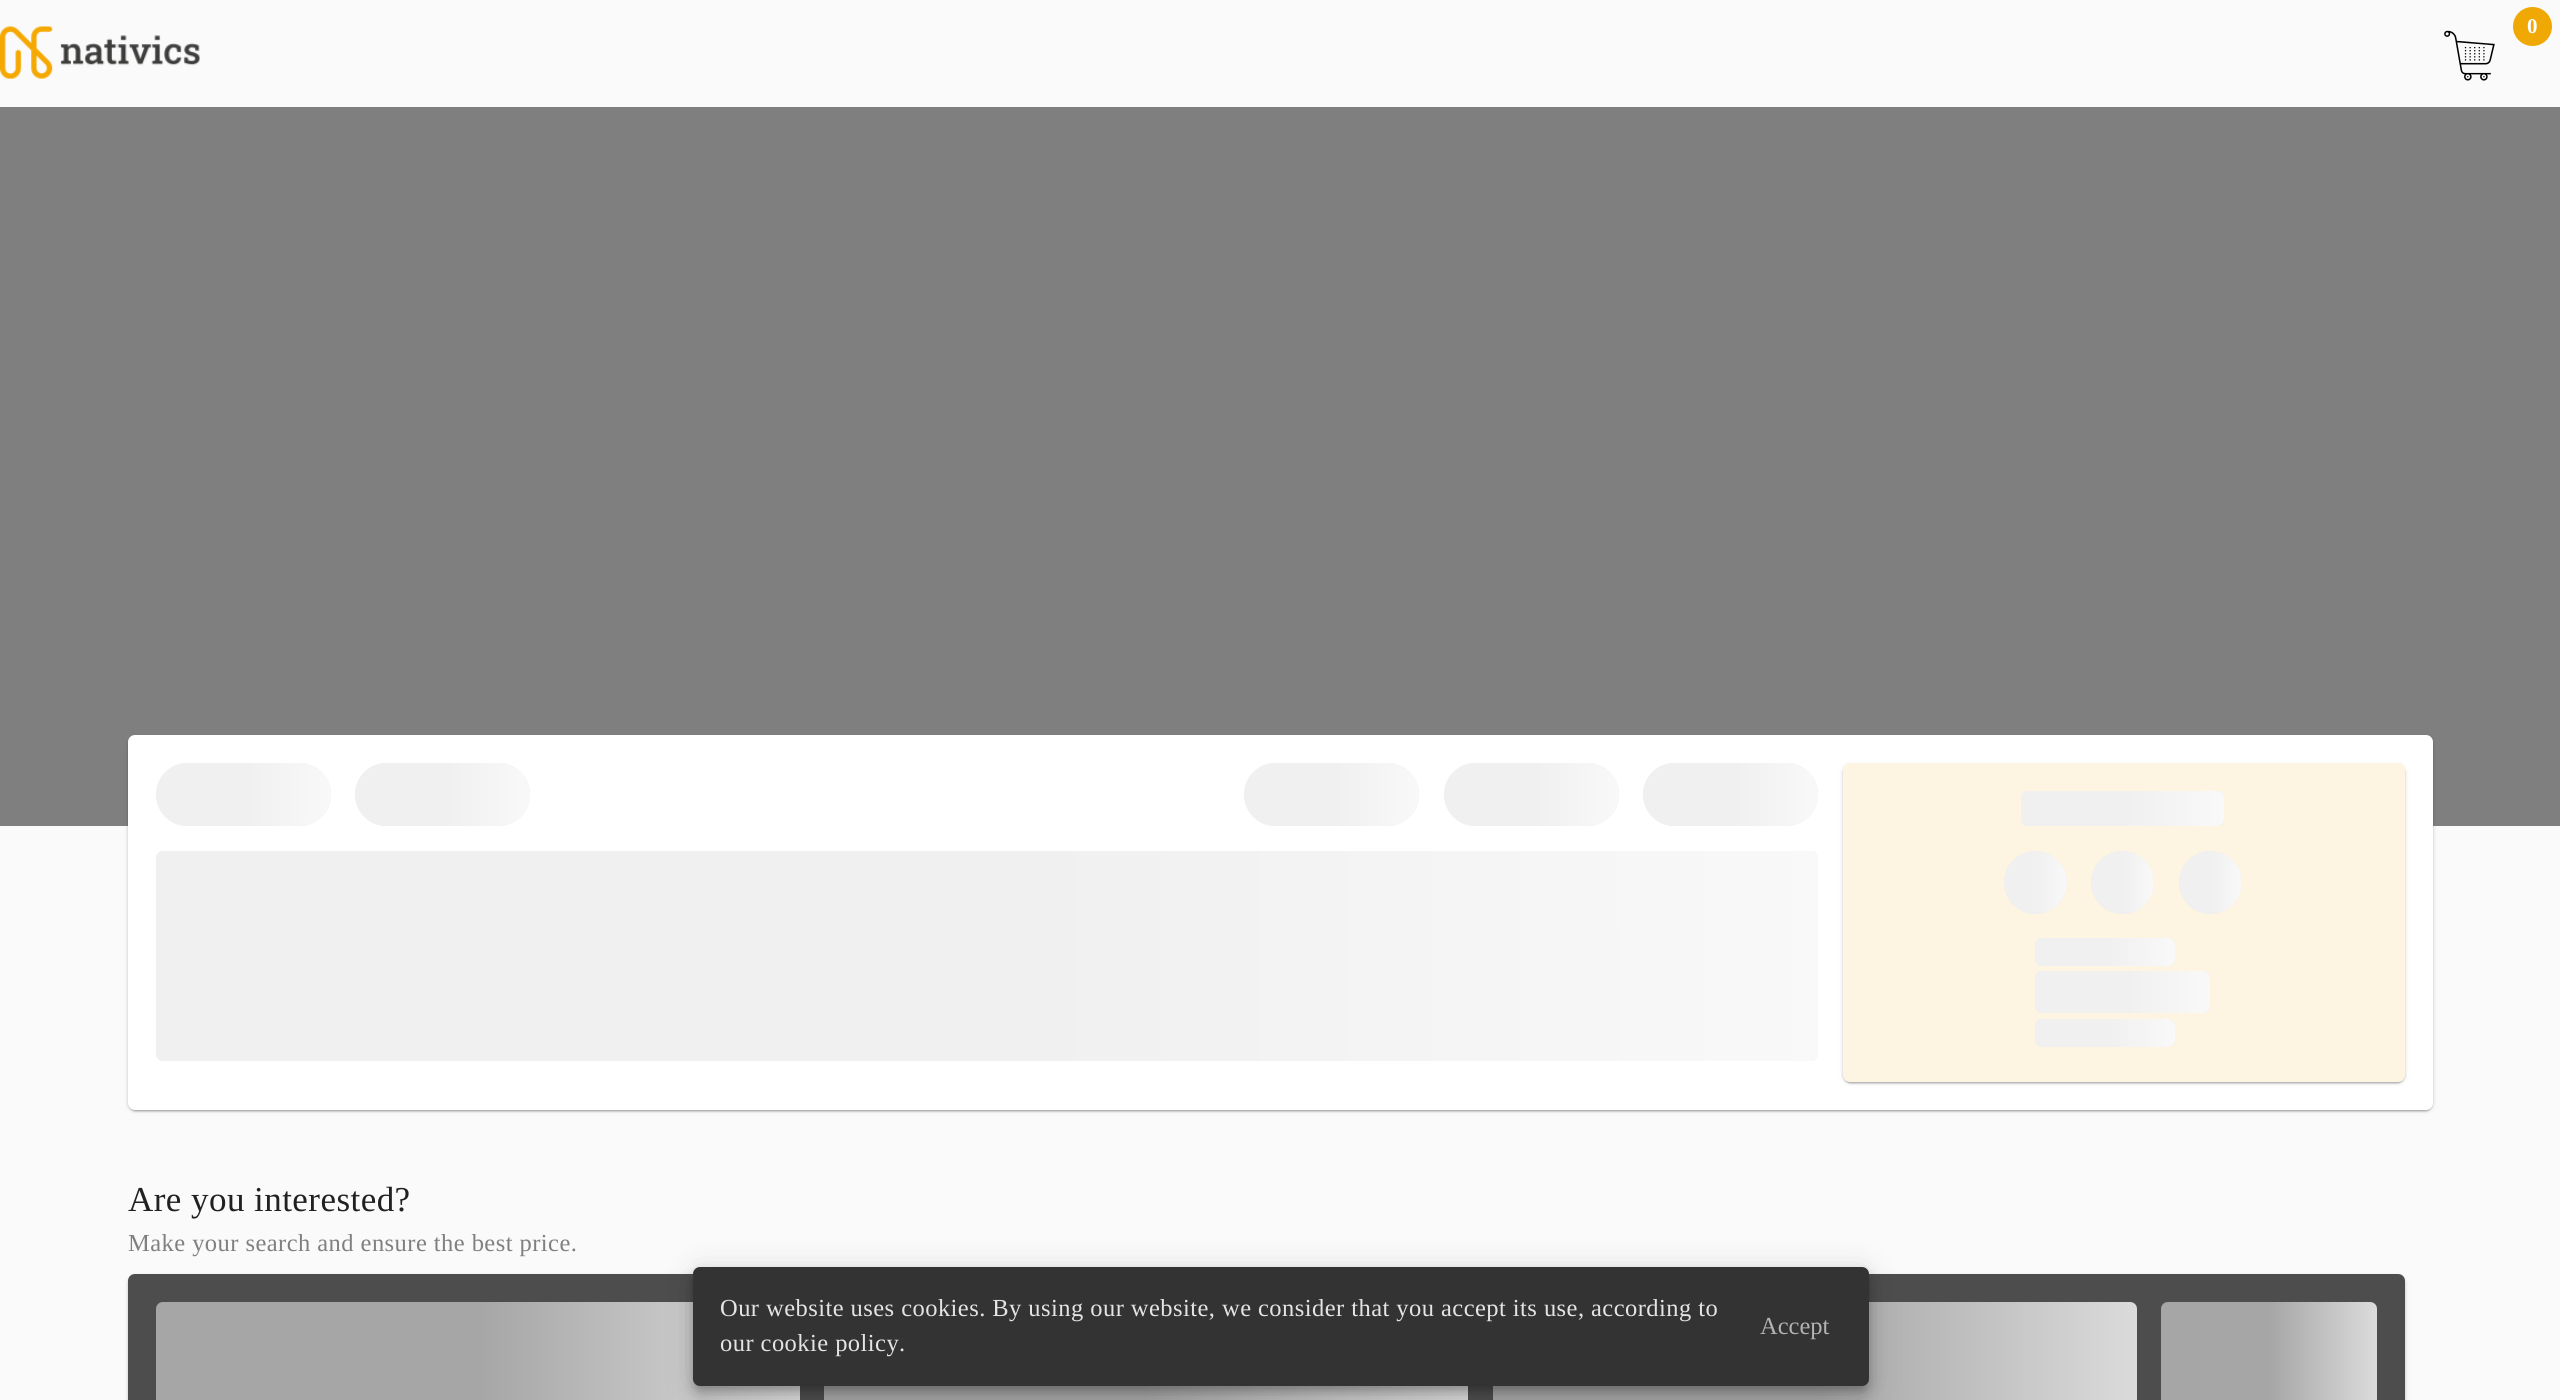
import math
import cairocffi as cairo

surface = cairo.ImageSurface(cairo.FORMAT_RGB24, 2560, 1400)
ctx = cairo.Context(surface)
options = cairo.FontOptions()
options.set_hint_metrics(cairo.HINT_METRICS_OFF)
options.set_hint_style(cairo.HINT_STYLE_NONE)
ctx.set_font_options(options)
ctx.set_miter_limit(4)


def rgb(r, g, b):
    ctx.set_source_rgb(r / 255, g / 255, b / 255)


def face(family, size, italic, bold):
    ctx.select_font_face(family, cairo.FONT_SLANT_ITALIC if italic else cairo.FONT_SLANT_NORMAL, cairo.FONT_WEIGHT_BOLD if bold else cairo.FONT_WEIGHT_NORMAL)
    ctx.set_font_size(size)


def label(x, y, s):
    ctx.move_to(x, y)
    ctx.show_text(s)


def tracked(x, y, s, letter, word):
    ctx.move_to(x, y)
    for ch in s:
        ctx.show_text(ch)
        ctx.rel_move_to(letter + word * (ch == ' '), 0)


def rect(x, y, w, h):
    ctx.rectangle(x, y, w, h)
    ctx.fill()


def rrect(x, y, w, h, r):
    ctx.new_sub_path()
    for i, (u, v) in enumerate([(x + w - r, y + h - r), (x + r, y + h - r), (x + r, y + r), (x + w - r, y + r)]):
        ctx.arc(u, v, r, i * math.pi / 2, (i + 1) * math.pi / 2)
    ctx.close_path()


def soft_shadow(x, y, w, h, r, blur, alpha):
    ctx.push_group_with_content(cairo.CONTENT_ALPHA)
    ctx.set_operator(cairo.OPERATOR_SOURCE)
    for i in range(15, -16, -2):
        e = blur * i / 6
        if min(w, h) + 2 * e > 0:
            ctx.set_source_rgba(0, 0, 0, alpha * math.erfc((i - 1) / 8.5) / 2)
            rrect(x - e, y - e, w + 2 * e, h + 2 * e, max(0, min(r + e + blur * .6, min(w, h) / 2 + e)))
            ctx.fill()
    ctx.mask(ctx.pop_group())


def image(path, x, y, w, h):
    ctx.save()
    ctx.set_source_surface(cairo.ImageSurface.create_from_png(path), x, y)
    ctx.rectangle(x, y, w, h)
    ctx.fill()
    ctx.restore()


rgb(250, 250, 250)
ctx.paint()
image('image0.png', 0, 26, 200, 53)
rgb(240, 168, 4)
ctx.arc(2532.5, 26.5, 19.5, 0, 2 * math.pi)
ctx.fill()
face('Liberation Serif', 21, 0, 1)
rgb(255, 255, 255)
label(2527, 33, '0')
image('image1.png', 2444, 30, 51, 51)
rgb(127, 127, 127)
rect(0, 107, 2560, 719)
rgb(0, 0, 0)
soft_shadow(128, 737, 2305, 374, 7, 2.5, 0.12)
soft_shadow(128, 737, 2305, 374, 7, 1, 0.14)
soft_shadow(130, 740, 2301, 371, 5, 1, 0.2)
rgb(255, 255, 255)
rrect(128, 735, 2305, 375, 7)
ctx.fill()
rgb(224, 224, 224)
rrect(156, 763, 175, 63, 31.5)
ctx.fill()
gradient = cairo.LinearGradient(156, 795, 506, 795)
gradient.add_color_stop_rgba(0.25, 1, 1, 1, 0.5)
gradient.add_color_stop_rgba(0.5, 1, 1, 1, 0.8)
gradient.add_color_stop_rgba(0.75, 1, 1, 1, 0.5)
ctx.set_source(gradient)
rrect(156, 763, 175, 63, 31.5)
ctx.fill()
rgb(224, 224, 224)
rrect(355, 763, 175, 63, 31.5)
ctx.fill()
gradient = cairo.LinearGradient(355, 795, 705, 795)
gradient.add_color_stop_rgba(0.25, 1, 1, 1, 0.5)
gradient.add_color_stop_rgba(0.5, 1, 1, 1, 0.8)
gradient.add_color_stop_rgba(0.75, 1, 1, 1, 0.5)
ctx.set_source(gradient)
rrect(355, 763, 175, 63, 31.5)
ctx.fill()
rgb(224, 224, 224)
rrect(1244, 763, 175, 63, 31.5)
ctx.fill()
gradient = cairo.LinearGradient(1244, 795, 1594, 795)
gradient.add_color_stop_rgba(0.25, 1, 1, 1, 0.5)
gradient.add_color_stop_rgba(0.5, 1, 1, 1, 0.8)
gradient.add_color_stop_rgba(0.75, 1, 1, 1, 0.5)
ctx.set_source(gradient)
rrect(1244, 763, 175, 63, 31.5)
ctx.fill()
rgb(224, 224, 224)
rrect(1444, 763, 175, 63, 31.5)
ctx.fill()
gradient = cairo.LinearGradient(1444, 795, 1794, 795)
gradient.add_color_stop_rgba(0.25, 1, 1, 1, 0.5)
gradient.add_color_stop_rgba(0.5, 1, 1, 1, 0.8)
gradient.add_color_stop_rgba(0.75, 1, 1, 1, 0.5)
ctx.set_source(gradient)
rrect(1444, 763, 175, 63, 31.5)
ctx.fill()
rgb(224, 224, 224)
rrect(1643, 763, 175, 63, 31.5)
ctx.fill()
gradient = cairo.LinearGradient(1643, 795, 1993, 795)
gradient.add_color_stop_rgba(0.25, 1, 1, 1, 0.5)
gradient.add_color_stop_rgba(0.5, 1, 1, 1, 0.8)
gradient.add_color_stop_rgba(0.75, 1, 1, 1, 0.5)
ctx.set_source(gradient)
rrect(1643, 763, 175, 63, 31.5)
ctx.fill()
rgb(224, 224, 224)
rrect(156, 851, 1662, 210, 7)
ctx.fill()
gradient = cairo.LinearGradient(156, 956, 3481, 955)
gradient.add_color_stop_rgba(0.25, 1, 1, 1, 0.5)
gradient.add_color_stop_rgba(0.5, 1, 1, 1, 0.8)
gradient.add_color_stop_rgba(0.75, 1, 1, 1, 0.5)
ctx.set_source(gradient)
rrect(156, 851, 1662, 210, 7)
ctx.fill()
rgb(0, 0, 0)
soft_shadow(1843, 765, 562, 318, 7, 2.5, 0.12)
soft_shadow(1843, 765, 562, 318, 7, 1, 0.14)
soft_shadow(1845, 768, 558, 315, 5, 1, 0.2)
rgb(253, 245, 225)
rrect(1843, 763, 562, 319, 7)
ctx.fill()
rgb(224, 224, 224)
rrect(2021, 791, 203, 35, 7)
ctx.fill()
gradient = cairo.LinearGradient(2021, 809, 2427, 809)
gradient.add_color_stop_rgba(0.25, 1, 1, 1, 0.5)
gradient.add_color_stop_rgba(0.5, 1, 1, 1, 0.8)
gradient.add_color_stop_rgba(0.75, 1, 1, 1, 0.5)
ctx.set_source(gradient)
rrect(2021, 791, 203, 35, 7)
ctx.fill()
rgb(224, 224, 224)
ctx.arc(2035.5, 882.5, 31.5, 0, 2 * math.pi)
ctx.fill()
gradient = cairo.LinearGradient(2004, 882, 2130, 882)
gradient.add_color_stop_rgba(0.25, 1, 1, 1, 0.5)
gradient.add_color_stop_rgba(0.5, 1, 1, 1, 0.8)
gradient.add_color_stop_rgba(0.75, 1, 1, 1, 0.5)
ctx.set_source(gradient)
ctx.arc(2035.5, 882.5, 31.5, 0, 2 * math.pi)
ctx.fill()
rgb(224, 224, 224)
ctx.arc(2122.5, 882.5, 31.5, 0, 2 * math.pi)
ctx.fill()
gradient = cairo.LinearGradient(2091, 882, 2217, 882)
gradient.add_color_stop_rgba(0.25, 1, 1, 1, 0.5)
gradient.add_color_stop_rgba(0.5, 1, 1, 1, 0.8)
gradient.add_color_stop_rgba(0.75, 1, 1, 1, 0.5)
ctx.set_source(gradient)
ctx.arc(2122.5, 882.5, 31.5, 0, 2 * math.pi)
ctx.fill()
rgb(224, 224, 224)
ctx.arc(2210.5, 882.5, 31.5, 0, 2 * math.pi)
ctx.fill()
gradient = cairo.LinearGradient(2179, 882, 2305, 882)
gradient.add_color_stop_rgba(0.25, 1, 1, 1, 0.5)
gradient.add_color_stop_rgba(0.5, 1, 1, 1, 0.8)
gradient.add_color_stop_rgba(0.75, 1, 1, 1, 0.5)
ctx.set_source(gradient)
ctx.arc(2210.5, 882.5, 31.5, 0, 2 * math.pi)
ctx.fill()
rgb(224, 224, 224)
rrect(2035, 938, 140, 28, 7)
ctx.fill()
gradient = cairo.LinearGradient(2035, 952, 2315, 952)
gradient.add_color_stop_rgba(0.25, 1, 1, 1, 0.5)
gradient.add_color_stop_rgba(0.5, 1, 1, 1, 0.8)
gradient.add_color_stop_rgba(0.75, 1, 1, 1, 0.5)
ctx.set_source(gradient)
rrect(2035, 938, 140, 28, 7)
ctx.fill()
rgb(224, 224, 224)
rrect(2035, 971, 175, 42, 7)
ctx.fill()
gradient = cairo.LinearGradient(2035, 992, 2385, 992)
gradient.add_color_stop_rgba(0.25, 1, 1, 1, 0.5)
gradient.add_color_stop_rgba(0.5, 1, 1, 1, 0.8)
gradient.add_color_stop_rgba(0.75, 1, 1, 1, 0.5)
ctx.set_source(gradient)
rrect(2035, 971, 175, 42, 7)
ctx.fill()
rgb(224, 224, 224)
rrect(2035, 1019, 140, 28, 7)
ctx.fill()
gradient = cairo.LinearGradient(2035, 1033, 2315, 1033)
gradient.add_color_stop_rgba(0.25, 1, 1, 1, 0.5)
gradient.add_color_stop_rgba(0.5, 1, 1, 1, 0.8)
gradient.add_color_stop_rgba(0.75, 1, 1, 1, 0.5)
ctx.set_source(gradient)
rrect(2035, 1019, 140, 28, 7)
ctx.fill()
face('Liberation Serif', 35, 0, 0)
rgb(33, 33, 33)
tracked(128, 1211, 'Are you interested?', 0.45, 0)
face('Liberation Serif', 24.5, 0, 0)
rgb(128, 128, 128)
tracked(128, 1251, 'Make your search and ensure the best price.', 0.45, 0)
rgb(0, 0, 0)
soft_shadow(128, 1276, 2277, 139, 7, 2.5, 0.12)
soft_shadow(128, 1276, 2277, 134, 7, 1, 0.14)
rgb(77, 77, 77)
ctx.new_path()
ctx.move_to(135, 1274)
ctx.line_to(2398, 1274)
ctx.curve_to(2402, 1274, 2405, 1277, 2405, 1281)
ctx.line_to(2405, 1400)
ctx.line_to(128, 1400)
ctx.line_to(128, 1281)
ctx.curve_to(128, 1277, 131, 1274, 135, 1274)
ctx.close_path()
ctx.fill()
gradient = cairo.LinearGradient(156, 1355, 1444, 1355)
gradient.add_color_stop_rgba(0.25, 0.651, 0.651, 0.651, 1)
gradient.add_color_stop_rgba(0.5, 0.859, 0.859, 0.859, 1)
gradient.add_color_stop_rgba(0.75, 0.651, 0.651, 0.651, 1)
ctx.set_source(gradient)
ctx.new_path()
ctx.move_to(163, 1302)
ctx.line_to(793, 1302)
ctx.curve_to(797, 1302, 800, 1305, 800, 1309)
ctx.line_to(800, 1400)
ctx.line_to(156, 1400)
ctx.line_to(156, 1309)
ctx.curve_to(156, 1305, 159, 1302, 163, 1302)
ctx.close_path()
ctx.fill()
gradient = cairo.LinearGradient(824, 1355, 2112, 1355)
gradient.add_color_stop_rgba(0.25, 0.651, 0.651, 0.651, 1)
gradient.add_color_stop_rgba(0.5, 0.859, 0.859, 0.859, 1)
gradient.add_color_stop_rgba(0.75, 0.651, 0.651, 0.651, 1)
ctx.set_source(gradient)
rect(824, 1386, 644, 14)
gradient = cairo.LinearGradient(1493, 1355, 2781, 1355)
gradient.add_color_stop_rgba(0.25, 0.651, 0.651, 0.651, 1)
gradient.add_color_stop_rgba(0.5, 0.859, 0.859, 0.859, 1)
gradient.add_color_stop_rgba(0.75, 0.651, 0.651, 0.651, 1)
ctx.set_source(gradient)
ctx.new_path()
ctx.move_to(1500, 1302)
ctx.line_to(2130, 1302)
ctx.curve_to(2134, 1302, 2137, 1305, 2137, 1309)
ctx.line_to(2137, 1400)
ctx.line_to(1493, 1400)
ctx.line_to(1493, 1309)
ctx.curve_to(1493, 1305, 1496, 1302, 1500, 1302)
ctx.close_path()
ctx.fill()
gradient = cairo.LinearGradient(2161, 1355, 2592, 1355)
gradient.add_color_stop_rgba(0.25, 0.651, 0.651, 0.651, 1)
gradient.add_color_stop_rgba(0.5, 0.859, 0.859, 0.859, 1)
gradient.add_color_stop_rgba(0.75, 0.651, 0.651, 0.651, 1)
ctx.set_source(gradient)
ctx.new_path()
ctx.move_to(2168, 1302)
ctx.line_to(2370, 1302)
ctx.curve_to(2374, 1302, 2377, 1305, 2377, 1309)
ctx.line_to(2377, 1400)
ctx.line_to(2161, 1400)
ctx.line_to(2161, 1309)
ctx.curve_to(2161, 1305, 2164, 1302, 2168, 1302)
ctx.close_path()
ctx.fill()
rgb(0, 0, 0)
soft_shadow(693, 1269, 1176, 119, 7, 16, 0.12)
soft_shadow(693, 1278, 1176, 119, 7, 9, 0.14)
soft_shadow(695, 1274, 1172, 116, 5, 4.5, 0.2)
rgb(51, 51, 51)
rrect(693, 1267, 1176, 119, 7)
ctx.fill()
rgb(228, 228, 228)
tracked(720, 1316, 'Our website uses cookies. By using our website, we consider that you accept its use, according to', 0.45, 0)
tracked(720, 1351, 'our cookie policy.', 0.45, 0)
rgb(179, 179, 179)
label(1760, 1334, 'Accept')
surface.write_to_png('render.png')
